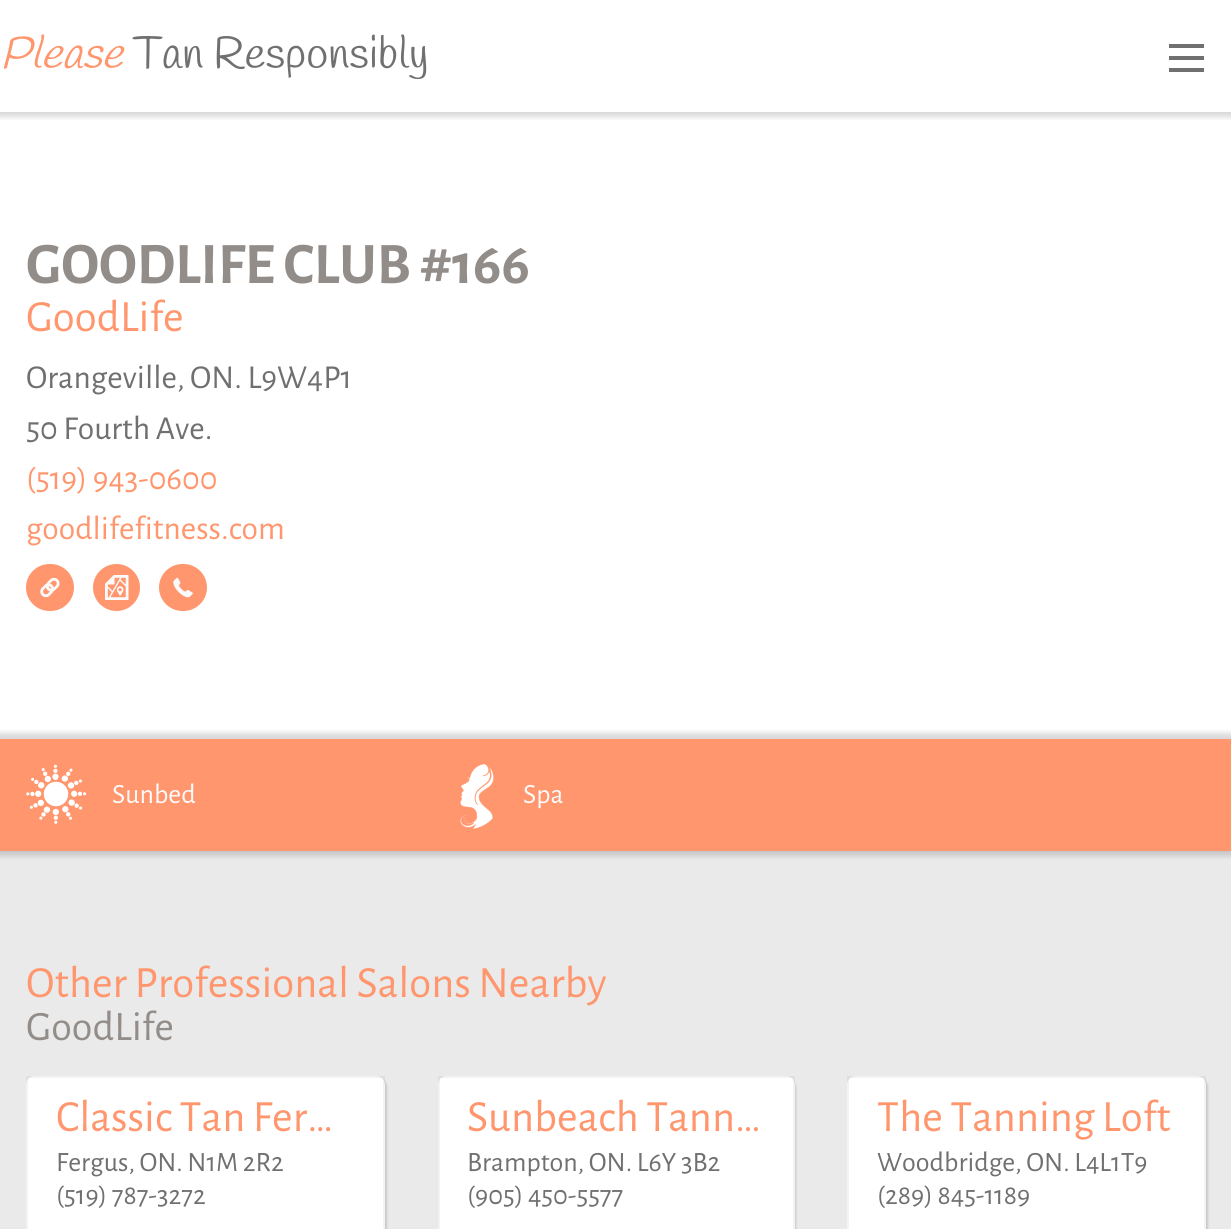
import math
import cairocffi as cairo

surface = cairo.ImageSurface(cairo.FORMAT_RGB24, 1231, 1229)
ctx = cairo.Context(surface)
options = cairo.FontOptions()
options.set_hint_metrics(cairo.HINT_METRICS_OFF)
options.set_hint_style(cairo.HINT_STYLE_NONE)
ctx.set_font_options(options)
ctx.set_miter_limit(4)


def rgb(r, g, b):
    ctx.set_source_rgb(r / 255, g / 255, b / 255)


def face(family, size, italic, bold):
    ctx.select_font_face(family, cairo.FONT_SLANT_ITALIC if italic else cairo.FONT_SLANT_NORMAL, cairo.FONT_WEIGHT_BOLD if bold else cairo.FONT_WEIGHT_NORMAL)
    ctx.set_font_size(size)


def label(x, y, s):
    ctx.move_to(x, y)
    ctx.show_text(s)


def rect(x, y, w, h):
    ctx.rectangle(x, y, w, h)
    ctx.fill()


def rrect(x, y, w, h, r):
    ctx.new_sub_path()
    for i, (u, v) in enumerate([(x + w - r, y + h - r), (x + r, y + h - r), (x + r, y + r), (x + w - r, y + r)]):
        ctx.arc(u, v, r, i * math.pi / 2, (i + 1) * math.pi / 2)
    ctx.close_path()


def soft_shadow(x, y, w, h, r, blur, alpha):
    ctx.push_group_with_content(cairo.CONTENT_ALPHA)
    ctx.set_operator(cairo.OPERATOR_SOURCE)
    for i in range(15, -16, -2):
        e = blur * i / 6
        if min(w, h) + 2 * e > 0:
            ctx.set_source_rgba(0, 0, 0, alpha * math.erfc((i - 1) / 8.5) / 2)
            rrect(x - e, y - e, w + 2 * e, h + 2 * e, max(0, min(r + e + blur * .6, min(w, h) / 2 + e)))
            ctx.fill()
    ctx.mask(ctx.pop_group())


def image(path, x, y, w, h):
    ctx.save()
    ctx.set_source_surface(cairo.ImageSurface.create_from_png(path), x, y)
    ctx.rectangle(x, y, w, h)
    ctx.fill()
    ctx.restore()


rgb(255, 255, 255)
ctx.paint()
ctx.save()
ctx.rectangle(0, 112, 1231, 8)
ctx.clip()
rgb(0, 0, 0)
soft_shadow(-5, -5, 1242, 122, 0, 2.5, 0.15)
ctx.restore()
face('Handlee', 44.75, 1, 0)
rgb(255, 150, 109)
label(0, 68, 'Please')
face('Handlee', 44.75, 0, 0)
rgb(112, 112, 112)
label(133, 68, 'Tan Responsibly')
rect(1169, 68, 35, 4)
rect(1169, 56, 35, 4)
rect(1169, 44, 35, 4)
face('Alegreya Sans', 58.75, 0, 1)
rgb(147, 141, 137)
label(26, 283, 'GOODLIFE CLUB #166')
face('Alegreya Sans', 44.75, 0, 0)
rgb(255, 150, 109)
label(26, 331, 'GoodLife')
face('Alegreya Sans', 33.5, 0, 0)
rgb(112, 112, 112)
label(26, 388, 'Orangeville, ON. L9W4P1')
label(26, 439, '50 Fourth Ave.')
rgb(255, 150, 109)
label(26, 489, '(519) 943-0600')
label(26, 539, 'goodlifefitness.com')
rrect(26, 564, 48, 47, 23.5)
ctx.fill()
image('image0.png', 40, 577, 20, 21)
ctx.arc(116.5, 587.5, 23.5, 0, 2 * math.pi)
ctx.fill()
image('image1.png', 105, 575, 24, 25)
rrect(159, 564, 48, 47, 23.5)
ctx.fill()
image('image2.png', 173, 577, 20, 21)
rgb(234, 234, 234)
rect(0, 851, 1231, 378)
rgb(0, 0, 0)
soft_shadow(-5, 733, 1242, 123, 0, 2.5, 0.15)
rgb(255, 150, 109)
rect(0, 739, 1231, 112)
image('image3.png', 26, 764, 61, 60)
face('Alegreya Sans', 28, 0, 0)
rgb(250, 250, 250)
label(112, 803, 'Sunbed')
image('image4.png', 460, 764, 34, 65)
label(523, 803, 'Spa')
face('Alegreya Sans', 44.75, 0, 0)
rgb(255, 150, 109)
label(26, 997, 'Other Professional Salons Nearby')
face('Alegreya Sans', 42, 0, 0)
rgb(147, 141, 137)
label(26, 1040, 'GoodLife')
rgb(0, 0, 0)
soft_shadow(28, 1078, 359, 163, 9, 1, 0.15)
rgb(255, 255, 255)
rrect(26, 1076, 359, 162, 9)
ctx.fill()
ctx.rectangle(27, 1077, 357, 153)
ctx.set_source_rgba(0, 0, 0, 0.05)
ctx.stroke()
face('Alegreya Sans', 44.75, 0, 0)
rgb(255, 150, 109)
label(56, 1131, 'Classic Tan Fer…')
face('Alegreya Sans', 28, 0, 0)
rgb(112, 112, 112)
label(56, 1171, 'Fergus, ON. N1M 2R2')
label(56, 1204, '(519) 787-3272')
rgb(0, 0, 0)
soft_shadow(439, 1078, 357, 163, 9, 1, 0.15)
rgb(255, 255, 255)
rrect(438, 1076, 357, 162, 9)
ctx.fill()
ctx.rectangle(439, 1077, 355, 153)
ctx.set_source_rgba(0, 0, 0, 0.05)
ctx.stroke()
face('Alegreya Sans', 44.75, 0, 0)
rgb(255, 150, 109)
label(467, 1131, 'Sunbeach Tann…')
face('Alegreya Sans', 28, 0, 0)
rgb(112, 112, 112)
label(467, 1171, 'Brampton, ON. L6Y 3B2')
label(467, 1204, '(905) 450-5577')
rgb(0, 0, 0)
soft_shadow(849, 1078, 359, 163, 9, 1, 0.15)
rgb(255, 255, 255)
rrect(847, 1076, 359, 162, 9)
ctx.fill()
ctx.rectangle(848, 1077, 357, 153)
ctx.set_source_rgba(0, 0, 0, 0.05)
ctx.stroke()
face('Alegreya Sans', 44.75, 0, 0)
rgb(255, 150, 109)
label(877, 1131, 'The Tanning Loft')
face('Alegreya Sans', 28, 0, 0)
rgb(112, 112, 112)
label(877, 1171, 'Woodbridge, ON. L4L1T9')
label(877, 1204, '(289) 845-1189')
surface.write_to_png('render.png')
